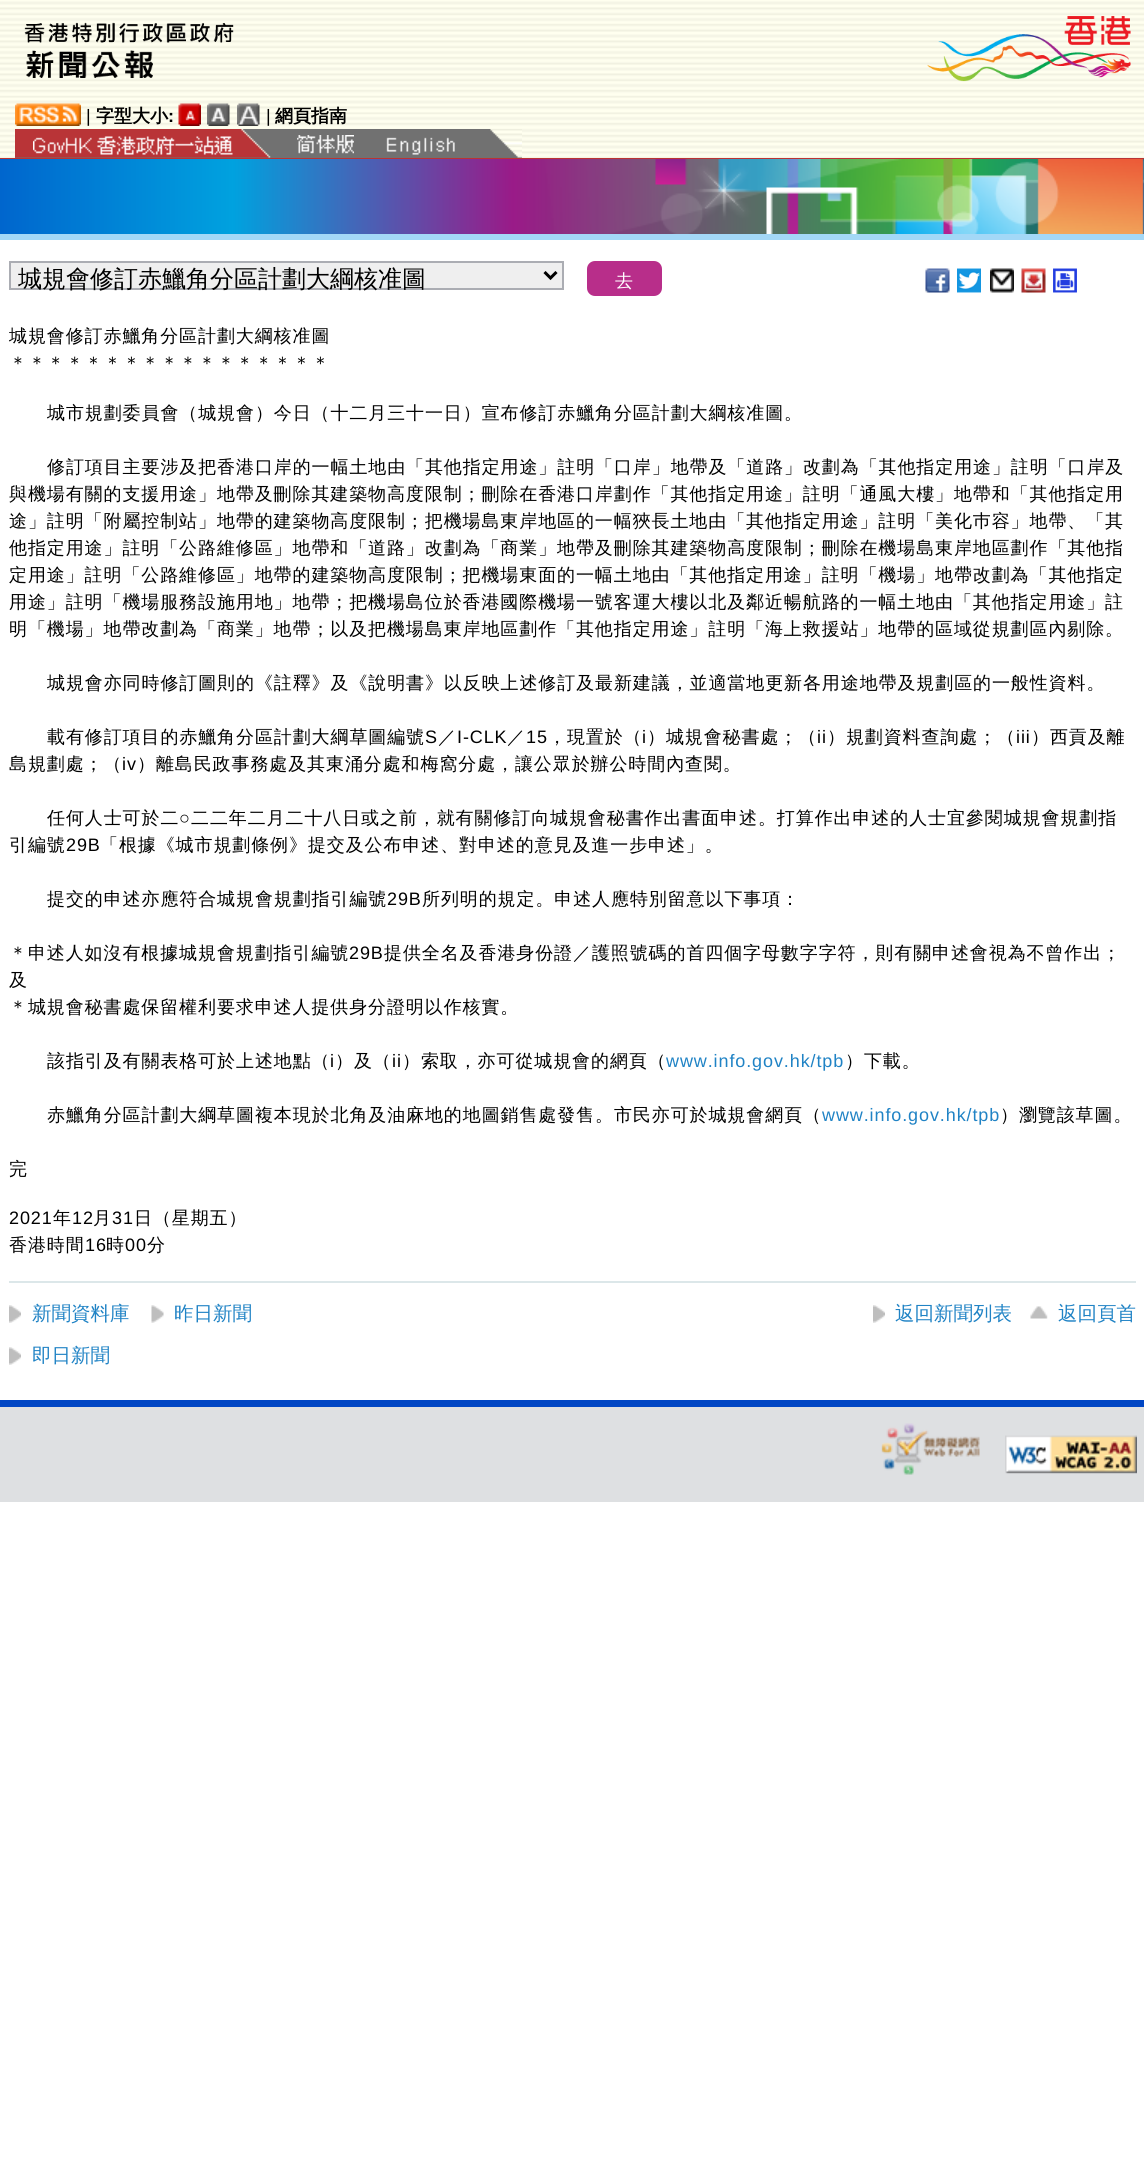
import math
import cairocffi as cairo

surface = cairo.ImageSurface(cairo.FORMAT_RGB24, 1144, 2160)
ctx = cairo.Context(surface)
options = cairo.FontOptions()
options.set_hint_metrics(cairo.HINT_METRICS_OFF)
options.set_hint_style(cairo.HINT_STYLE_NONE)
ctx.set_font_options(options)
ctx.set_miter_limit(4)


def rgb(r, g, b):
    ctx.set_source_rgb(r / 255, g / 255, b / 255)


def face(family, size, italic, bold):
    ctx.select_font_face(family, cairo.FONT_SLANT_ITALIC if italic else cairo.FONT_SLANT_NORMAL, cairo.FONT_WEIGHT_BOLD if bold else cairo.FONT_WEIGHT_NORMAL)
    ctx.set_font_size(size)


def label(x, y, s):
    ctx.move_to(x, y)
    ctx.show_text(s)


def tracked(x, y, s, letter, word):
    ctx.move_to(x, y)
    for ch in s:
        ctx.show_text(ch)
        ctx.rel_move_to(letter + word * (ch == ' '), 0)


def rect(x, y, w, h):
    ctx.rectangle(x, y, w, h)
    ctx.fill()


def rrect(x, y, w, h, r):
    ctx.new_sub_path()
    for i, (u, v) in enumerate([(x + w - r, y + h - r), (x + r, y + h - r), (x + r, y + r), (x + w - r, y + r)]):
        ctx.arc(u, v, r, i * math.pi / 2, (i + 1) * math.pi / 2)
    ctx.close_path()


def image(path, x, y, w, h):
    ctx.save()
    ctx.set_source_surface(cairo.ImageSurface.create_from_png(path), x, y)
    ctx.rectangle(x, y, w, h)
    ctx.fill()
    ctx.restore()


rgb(255, 255, 255)
ctx.paint()
image('image0.png', 0, 0, 1144, 158)
rgb(187, 51, 51)
rect(0, 158, 1144, 1)
image('image1.png', 24, 22, 210, 56)
image('image2.png', 927, 16, 204, 66)
image('image3.png', 15, 103, 66, 23)
face('Liberation Sans', 18, 0, 0)
rgb(0, 0, 0)
label(86, 122, '|')
face('WenQuanYi Zen Hei', 18, 0, 1)
label(96, 122, '字型大小')
face('Liberation Sans', 18, 0, 1)
label(168, 122, ':')
image('image4.png', 178, 103, 23, 23)
image('image5.png', 207, 103, 23, 23)
image('image6.png', 237, 103, 23, 23)
face('Liberation Sans', 18, 0, 0)
label(266, 122, '|')
face('WenQuanYi Zen Hei', 18, 0, 1)
label(275, 122, '網頁指南')
rgb(113, 113, 113)
rect(15, 129, 507, 29)
image('image7.png', 15, 129, 256, 29)
image('image8.png', 33, 136, 200, 19)
image('image9.png', 297, 135, 57, 19)
image('image10.png', 490, 129, 32, 29)
image('image11.png', 386, 137, 69, 18)
image('image12.png', 0, 159, 1144, 75)
rgb(163, 216, 247)
rect(0, 234, 1144, 6)
rgb(0, 70, 196)
rect(0, 1400, 1144, 7)
rgb(239, 239, 239)
ctx.rectangle(10, 262, 553, 27)
ctx.fill_preserve()
rgb(171, 173, 179)
ctx.stroke()
ctx.new_path()
ctx.move_to(544.5, 272)
ctx.line_to(550.5, 278)
ctx.line_to(556.5, 272)
rgb(0, 0, 0)
ctx.set_line_width(3)
ctx.stroke()
face('WenQuanYi Zen Hei Medium', 24, 0, 0)
label(18, 287, '城規會修訂赤鱲角分區計劃大綱核准圖')
rgb(184, 46, 138)
rrect(587, 261, 75, 35, 8)
ctx.fill()
face('WenQuanYi Zen Hei Medium', 18, 0, 0)
rgb(255, 255, 255)
label(615, 287, '去')
image('image13.png', 925, 268, 25, 25)
image('image14.png', 957, 268, 24, 25)
image('image15.png', 990, 268, 24, 25)
image('image16.png', 1021, 268, 25, 25)
image('image17.png', 1053, 268, 24, 25)
rgb(0, 0, 0)
tracked(9, 342, '城規會修訂赤鱲角分區計劃大綱核准圖', 0.9, 0)
tracked(9, 369, '＊＊＊＊＊＊＊＊＊＊＊＊＊＊＊＊＊', 0.9, 0)
tracked(47, 419, '城市規劃委員會（城規會）今日（十二月三十一日）宣布修訂赤鱲角分區計劃大綱核准圖。', 0.9, 0)
tracked(47, 473, '修訂項目主要涉及把香港口岸的一幅土地由「其他指定用途」註明「口岸」地帶及「道路」改劃為「其他指定用途」註明「口岸及', 0.9, 0)
tracked(9, 500, '與機場有關的支援用途」地帶及刪除其建築物高度限制；刪除在香港口岸劃作「其他指定用途」註明「通風大樓」地帶和「其他指定用', 0.9, 0)
tracked(9, 527, '途」註明「附屬控制站」地帶的建築物高度限制；把機場島東岸地區的一幅狹長土地由「其他指定用途」註明「美化巿容」地帶、「其', 0.9, 0)
tracked(9, 554, '他指定用途」註明「公路維修區」地帶和「道路」改劃為「商業」地帶及刪除其建築物高度限制；刪除在機場島東岸地區劃作「其他指', 0.9, 0)
tracked(9, 581, '定用途」註明「公路維修區」地帶的建築物高度限制；把機場東面的一幅土地由「其他指定用途」註明「機場」地帶改劃為「其他指定', 0.9, 0)
tracked(9, 608, '用途」註明「機場服務設施用地」地帶；把機場島位於香港國際機場一號客運大樓以北及鄰近暢航路的一幅土地由「其他指定用途」註', 0.9, 0)
tracked(9, 635, '明「機場」地帶改劃為「商業」地帶；以及把機場島東岸地區劃作「其他指定用途」註明「海上救援站」地帶的區域從規劃區內剔除。', 0.9, 0)
tracked(47, 689, '城規會亦同時修訂圖則的《註釋》及《說明書》以反映上述修訂及最新建議，並適當地更新各用途地帶及規劃區的一般性資料。', 0.9, 0)
tracked(47, 743, '載有修訂項目的赤鱲角分區計劃大綱草圖編號', 0.9, 0)
face('Liberation Sans', 18, 0, 0)
tracked(425, 743, 'S', 0.9, 0)
face('WenQuanYi Zen Hei Medium', 18, 0, 0)
tracked(438, 743, '／', 0.9, 0)
face('Liberation Sans', 18, 0, 0)
tracked(457, 743, 'I-CLK', 0.9, 0)
face('WenQuanYi Zen Hei Medium', 18, 0, 0)
tracked(507, 743, '／', 0.9, 0)
face('Liberation Sans', 18, 0, 0)
tracked(526, 743, '15', 0.9, 0)
face('WenQuanYi Zen Hei Medium', 18, 0, 0)
tracked(548, 743, '，現置於（', 0.9, 0)
face('Liberation Sans', 18, 0, 0)
tracked(642, 743, 'i', 0.9, 0)
face('WenQuanYi Zen Hei Medium', 18, 0, 0)
tracked(647, 743, '）城規會秘書處；（', 0.9, 0)
face('Liberation Sans', 18, 0, 0)
tracked(817, 743, 'ii', 0.9, 0)
face('WenQuanYi Zen Hei Medium', 18, 0, 0)
tracked(827, 743, '）規劃資料查詢處；（', 0.9, 0)
face('Liberation Sans', 18, 0, 0)
tracked(1016, 743, 'iii', 0.9, 0)
face('WenQuanYi Zen Hei Medium', 18, 0, 0)
tracked(1031, 743, '）西貢及離', 0.9, 0)
tracked(9, 770, '島規劃處；（', 0.9, 0)
face('Liberation Sans', 18, 0, 0)
tracked(122, 770, 'iv', 0.9, 0)
face('WenQuanYi Zen Hei Medium', 18, 0, 0)
tracked(137, 770, '）離島民政事務處及其東涌分處和梅窩分處，讓公眾於辦公時間內查閱。', 0.9, 0)
tracked(47, 824, '任何人士可於二', 0.9, 0)
face('Liberation Sans', 18, 0, 0)
tracked(179, 824, '○', 0.9, 0)
face('WenQuanYi Zen Hei Medium', 18, 0, 0)
tracked(191, 824, '二二年二月二十八日或之前，就有關修訂向城規會秘書作出書面申述。打算作出申述的人士宜參閱城規會規劃指', 0.9, 0)
tracked(9, 851, '引編號', 0.9, 0)
face('Liberation Sans', 18, 0, 0)
tracked(66, 851, '29B', 0.9, 0)
face('WenQuanYi Zen Hei Medium', 18, 0, 0)
tracked(100, 851, '「根據《城市規劃條例》提交及公布申述、對申述的意見及進一步申述」。', 0.9, 0)
tracked(47, 905, '提交的申述亦應符合城規會規劃指引編號', 0.9, 0)
face('Liberation Sans', 18, 0, 0)
tracked(387, 905, '29B', 0.9, 0)
face('WenQuanYi Zen Hei Medium', 18, 0, 0)
tracked(422, 905, '所列明的規定。申述人應特別留意以下事項：', 0.9, 0)
tracked(9, 959, '＊申述人如沒有根據城規會規劃指引編號', 0.9, 0)
face('Liberation Sans', 18, 0, 0)
tracked(349, 959, '29B', 0.9, 0)
face('WenQuanYi Zen Hei Medium', 18, 0, 0)
tracked(384, 959, '提供全名及香港身份證／護照號碼的首四個字母數字字符，則有關申述會視為不曾作出；', 0.9, 0)
tracked(9, 986, '及', 0.9, 0)
tracked(9, 1013, '＊城規會秘書處保留權利要求申述人提供身分證明以作核實。', 0.9, 0)
tracked(47, 1067, '該指引及有關表格可於上述地點（', 0.9, 0)
face('Liberation Sans', 18, 0, 0)
tracked(330, 1067, 'i', 0.9, 0)
face('WenQuanYi Zen Hei Medium', 18, 0, 0)
tracked(335, 1067, '）及（', 0.9, 0)
face('Liberation Sans', 18, 0, 0)
tracked(392, 1067, 'ii', 0.9, 0)
face('WenQuanYi Zen Hei Medium', 18, 0, 0)
tracked(402, 1067, '）索取，亦可從城規會的網頁（', 0.9, 0)
face('Liberation Sans', 18, 0, 0)
rgb(32, 131, 197)
tracked(666, 1067, 'www.info.gov.hk/tpb', 0.9, 0)
face('WenQuanYi Zen Hei Medium', 18, 0, 0)
rgb(0, 0, 0)
tracked(845, 1067, '）下載。', 0.9, 0)
tracked(47, 1121, '赤鱲角分區計劃大綱草圖複本現於北角及油麻地的地圖銷售處發售。市民亦可於城規會網頁（', 0.9, 0)
face('Liberation Sans', 18, 0, 0)
rgb(32, 131, 197)
tracked(822, 1121, 'www.info.gov.hk/tpb', 0.9, 0)
face('WenQuanYi Zen Hei Medium', 18, 0, 0)
rgb(0, 0, 0)
tracked(1000, 1121, '）瀏覽該草圖。', 0.9, 0)
tracked(9, 1175, '完', 0.9, 0)
face('Liberation Sans', 18, 0, 0)
tracked(9, 1224, '2021', 0.9, 0)
face('WenQuanYi Zen Hei Medium', 18, 0, 0)
tracked(53, 1224, '年', 0.9, 0)
face('Liberation Sans', 18, 0, 0)
tracked(72, 1224, '12', 0.9, 0)
face('WenQuanYi Zen Hei Medium', 18, 0, 0)
tracked(93, 1224, '月', 0.9, 0)
face('Liberation Sans', 18, 0, 0)
tracked(112, 1224, '31', 0.9, 0)
face('WenQuanYi Zen Hei Medium', 18, 0, 0)
tracked(134, 1224, '日（星期五）', 0.9, 0)
tracked(9, 1251, '香港時間', 0.9, 0)
face('Liberation Sans', 18, 0, 0)
tracked(85, 1251, '16', 0.9, 0)
face('WenQuanYi Zen Hei Medium', 18, 0, 0)
tracked(106, 1251, '時', 0.9, 0)
face('Liberation Sans', 18, 0, 0)
tracked(125, 1251, '00', 0.9, 0)
face('WenQuanYi Zen Hei Medium', 18, 0, 0)
tracked(147, 1251, '分', 0.9, 0)
rgb(220, 231, 233)
rect(9, 1281, 1127, 2)
image('image18.png', 9, 1305, 12, 18)
face('WenQuanYi Zen Hei Medium', 19.5, 0, 0)
rgb(32, 131, 197)
label(32, 1320, '新聞資料庫')
image('image19.png', 151, 1305, 13, 18)
label(174, 1320, '昨日新聞')
image('image18.png', 873, 1305, 12, 18)
label(895, 1320, '返回新聞列表')
image('image20.png', 1030, 1306, 18, 13)
label(1058, 1320, '返回頁首')
image('image18.png', 9, 1347, 12, 18)
label(32, 1362, '即日新聞')
rgb(222, 224, 226)
rect(0, 1407, 1144, 95)
image('image21.png', 881, 1423, 99, 52)
image('image22.png', 1005, 1435, 132, 39)
surface.write_to_png('render.png')
